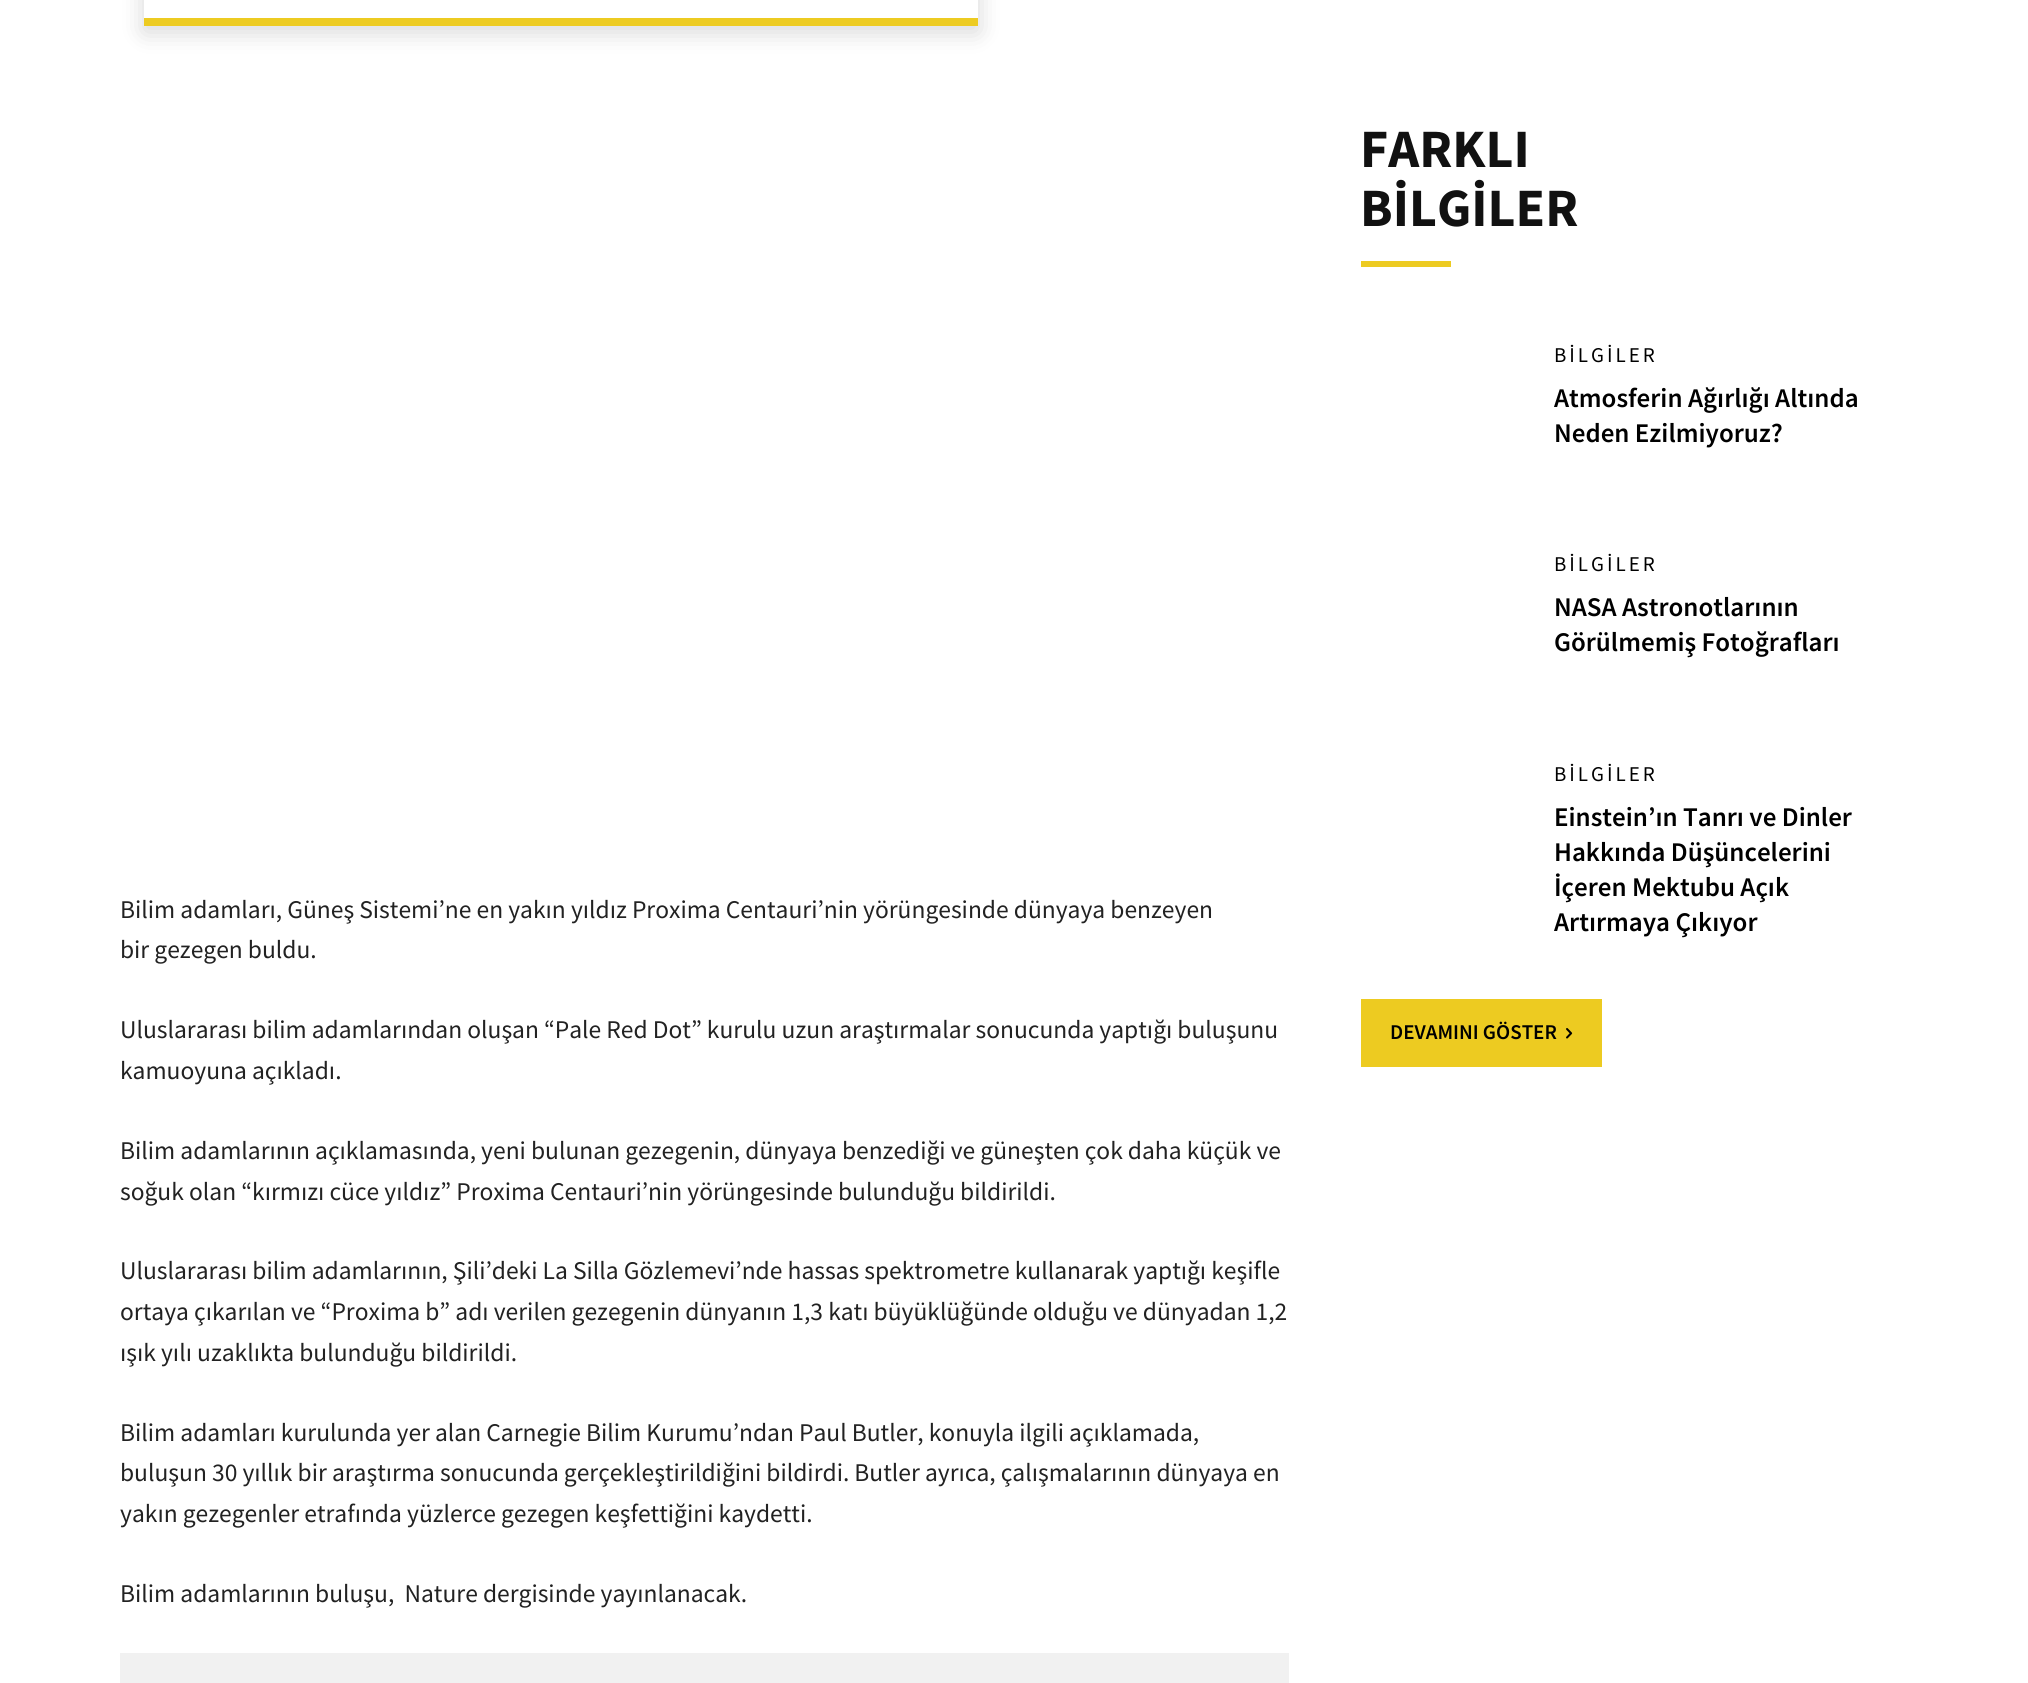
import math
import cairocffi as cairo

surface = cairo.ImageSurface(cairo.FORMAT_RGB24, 2028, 1683)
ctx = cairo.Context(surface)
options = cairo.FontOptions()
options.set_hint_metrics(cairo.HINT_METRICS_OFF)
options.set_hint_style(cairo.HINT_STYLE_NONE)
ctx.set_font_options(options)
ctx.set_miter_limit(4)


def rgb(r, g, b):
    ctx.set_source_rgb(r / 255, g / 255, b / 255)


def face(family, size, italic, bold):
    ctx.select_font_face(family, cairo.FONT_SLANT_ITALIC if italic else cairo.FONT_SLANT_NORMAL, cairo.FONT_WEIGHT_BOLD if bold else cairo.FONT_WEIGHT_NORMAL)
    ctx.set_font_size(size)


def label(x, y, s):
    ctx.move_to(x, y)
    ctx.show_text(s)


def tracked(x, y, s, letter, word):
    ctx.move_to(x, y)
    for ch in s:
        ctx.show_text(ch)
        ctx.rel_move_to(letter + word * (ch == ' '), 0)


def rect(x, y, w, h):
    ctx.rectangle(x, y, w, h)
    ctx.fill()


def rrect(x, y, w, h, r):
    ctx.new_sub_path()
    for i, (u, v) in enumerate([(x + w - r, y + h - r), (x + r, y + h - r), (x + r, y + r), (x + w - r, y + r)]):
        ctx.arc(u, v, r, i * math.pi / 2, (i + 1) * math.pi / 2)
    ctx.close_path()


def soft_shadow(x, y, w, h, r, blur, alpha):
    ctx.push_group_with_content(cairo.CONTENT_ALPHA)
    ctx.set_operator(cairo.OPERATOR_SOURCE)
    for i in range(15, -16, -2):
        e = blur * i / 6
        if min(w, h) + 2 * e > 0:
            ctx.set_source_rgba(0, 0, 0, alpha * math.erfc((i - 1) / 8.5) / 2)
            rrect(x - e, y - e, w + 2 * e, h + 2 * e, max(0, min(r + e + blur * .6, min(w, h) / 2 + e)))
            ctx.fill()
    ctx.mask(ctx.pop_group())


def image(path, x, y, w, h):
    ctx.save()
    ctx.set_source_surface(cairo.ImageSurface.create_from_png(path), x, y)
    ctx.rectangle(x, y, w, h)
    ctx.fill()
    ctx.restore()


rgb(255, 255, 255)
ctx.paint()
ctx.save()
ctx.set_fill_rule(cairo.FILL_RULE_EVEN_ODD)
ctx.new_path()
ctx.move_to(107, 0)
ctx.line_to(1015, 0)
ctx.line_to(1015, 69)
ctx.line_to(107, 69)
ctx.close_path()
ctx.move_to(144, -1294)
ctx.line_to(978, -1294)
ctx.line_to(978, 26)
ctx.line_to(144, 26)
ctx.close_path()
ctx.clip()
rgb(0, 0, 0)
soft_shadow(144, -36, 834, 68, 0, 12, 0.16)
ctx.restore()
rgb(237, 203, 33)
rect(144, 18, 834, 8)
face('Source Sans Pro', 54, 0, 1)
rgb(17, 17, 17)
label(1360, 167, 'FARKLI')
label(1360, 226, 'BİLGİLER')
rgb(237, 203, 33)
rect(1361, 261, 90, 6)
face('Source Sans Pro', 21, 0, 0)
rgb(0, 0, 0)
tracked(1554, 362, 'BİLGİLER', 3, 0)
face('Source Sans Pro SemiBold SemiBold', 27, 0, 0)
label(1554, 407, 'Atmosferin Ağırlığı Altında')
label(1554, 442, 'Neden Ezilmiyoruz?')
face('Source Sans Pro', 21, 0, 0)
tracked(1554, 571, 'BİLGİLER', 3, 0)
face('Source Sans Pro SemiBold SemiBold', 27, 0, 0)
label(1554, 616, 'NASA Astronotlarının')
label(1554, 651, 'Görülmemiş Fotoğrafları')
face('Source Sans Pro', 21, 0, 0)
tracked(1554, 781, 'BİLGİLER', 3, 0)
face('Source Sans Pro SemiBold SemiBold', 27, 0, 0)
label(1554, 826, 'Einstein’ın Tanrı ve Dinler')
label(1554, 861, 'Hakkında Düşüncelerini')
label(1554, 896, 'İçeren Mektubu Açık')
label(1554, 931, 'Artırmaya Çıkıyor')
rgb(237, 203, 33)
rect(1361, 999, 241, 68)
face('Source Sans Pro SemiBold SemiBold', 21, 0, 0)
rgb(0, 0, 0)
label(1390, 1039, 'DEVAMINI GÖSTER')
image('image0.png', 1566, 1028, 7, 11)
face('Source Sans Pro', 25.5, 0, 0)
rgb(34, 34, 34)
label(120, 918, 'Bilim adamları, Güneş Sistemi’ne en yakın yıldız Proxima Centauri’nin yörüngesinde dünyaya benzeyen')
label(120, 958, 'bir gezegen buldu.')
label(120, 1038, 'Uluslararası bilim adamlarından oluşan “Pale Red Dot” kurulu uzun araştırmalar sonucunda yaptığı buluşunu')
label(120, 1079, 'kamuoyuna açıkladı.')
label(120, 1159, 'Bilim adamlarının açıklamasında, yeni bulunan gezegenin, dünyaya benzediği ve güneşten çok daha küçük ve')
label(120, 1200, 'soğuk olan “kırmızı cüce yıldız” Proxima Centauri’nin yörüngesinde bulunduğu bildirildi.')
label(120, 1279, 'Uluslararası bilim adamlarının, Şili’deki La Silla Gözlemevi’nde hassas spektrometre kullanarak yaptığı keşifle')
label(120, 1320, 'ortaya çıkarılan ve “Proxima b” adı verilen gezegenin dünyanın 1,3 katı büyüklüğünde olduğu ve dünyadan 1,2')
label(120, 1361, 'ışık yılı uzaklıkta bulunduğu bildirildi.')
label(120, 1441, 'Bilim adamları kurulunda yer alan Carnegie Bilim Kurumu’ndan Paul Butler, konuyla ilgili açıklamada,')
label(120, 1481, 'buluşun 30 yıllık bir araştırma sonucunda gerçekleştirildiğini bildirdi. Butler ayrıca, çalışmalarının dünyaya en')
label(120, 1522, 'yakın gezegenler etrafında yüzlerce gezegen keşfettiğini kaydetti.')
label(120, 1602, 'Bilim adamlarının buluşu,  Nature dergisinde yayınlanacak.')
rgb(241, 241, 241)
rect(120, 1653, 1169, 30)
surface.write_to_png('render.png')
